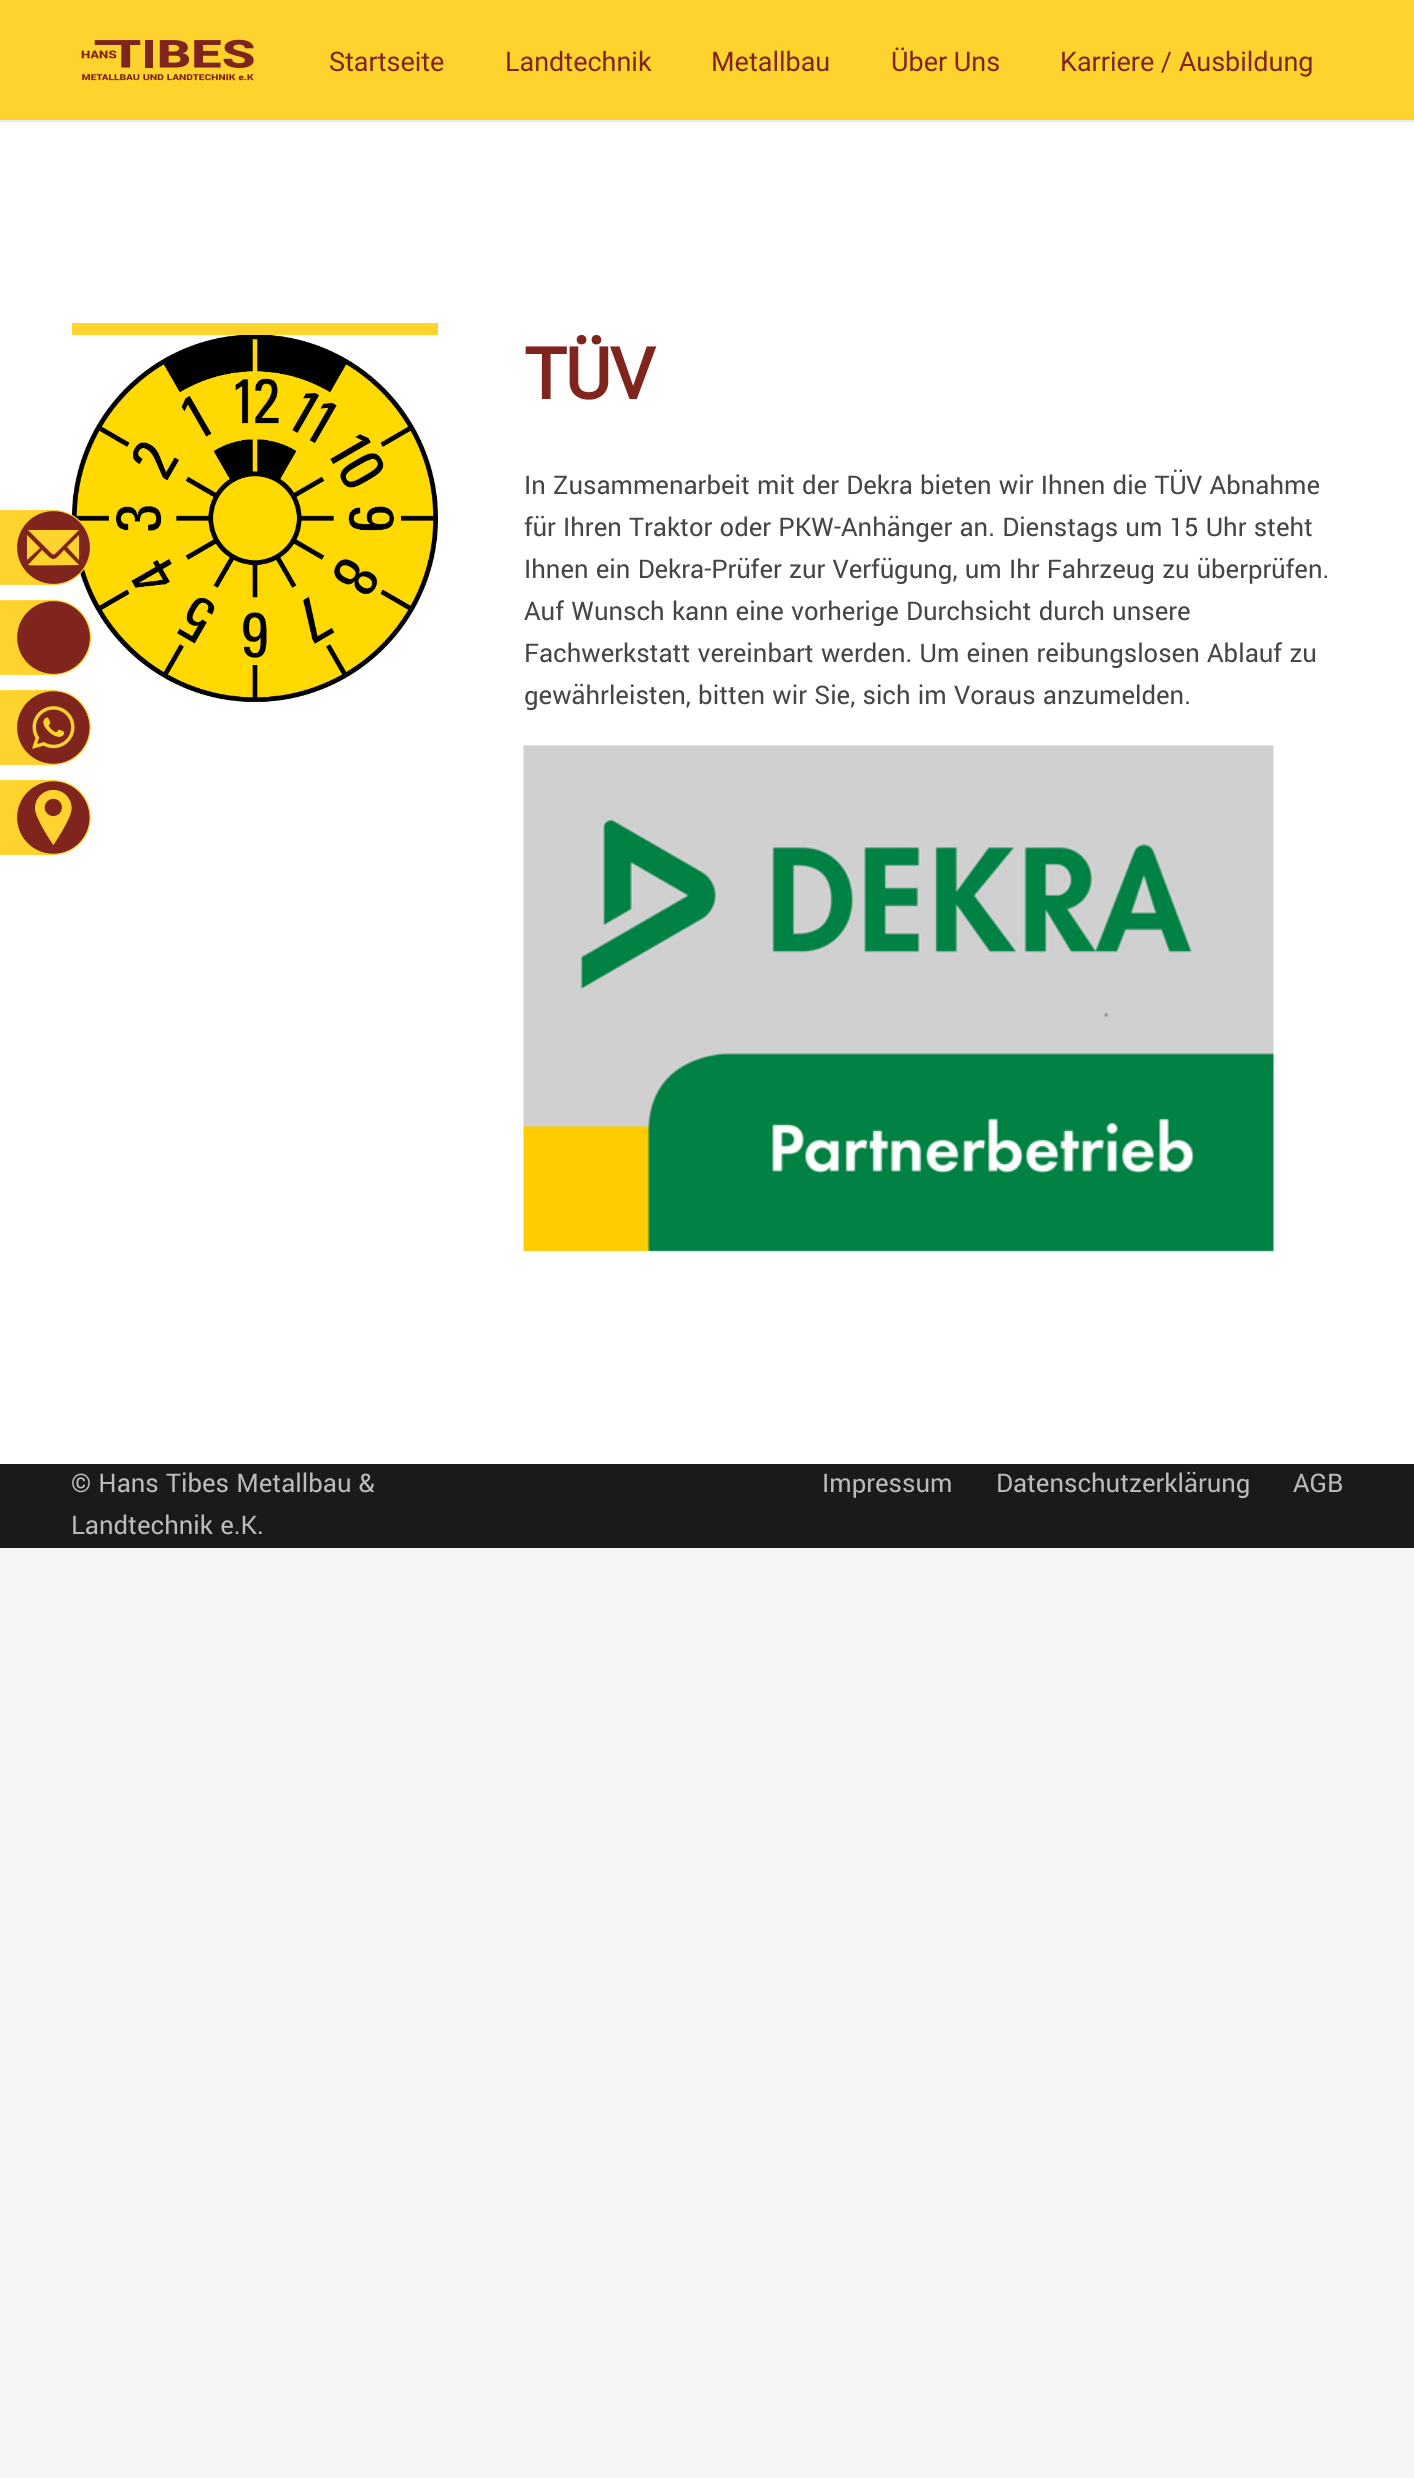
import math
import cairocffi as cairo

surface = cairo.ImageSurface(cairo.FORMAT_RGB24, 1414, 2478)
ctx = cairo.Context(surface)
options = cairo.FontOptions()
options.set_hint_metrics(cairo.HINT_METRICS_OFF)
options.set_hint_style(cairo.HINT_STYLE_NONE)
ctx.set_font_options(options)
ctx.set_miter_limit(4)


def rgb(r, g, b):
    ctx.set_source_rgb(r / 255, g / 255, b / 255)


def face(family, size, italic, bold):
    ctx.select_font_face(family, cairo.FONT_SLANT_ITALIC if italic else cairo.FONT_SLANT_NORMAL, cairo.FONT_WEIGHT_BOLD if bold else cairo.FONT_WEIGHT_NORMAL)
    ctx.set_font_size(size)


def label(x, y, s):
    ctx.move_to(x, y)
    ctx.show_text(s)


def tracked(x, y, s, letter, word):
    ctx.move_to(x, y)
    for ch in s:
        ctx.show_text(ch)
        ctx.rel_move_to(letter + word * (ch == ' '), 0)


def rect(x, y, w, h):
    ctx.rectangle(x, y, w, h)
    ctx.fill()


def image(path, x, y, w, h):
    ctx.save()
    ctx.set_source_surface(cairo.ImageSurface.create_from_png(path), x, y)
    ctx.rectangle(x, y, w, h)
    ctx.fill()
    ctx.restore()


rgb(245, 245, 245)
ctx.paint()
rgb(255, 255, 255)
rect(0, 122, 1414, 1342)
rgb(255, 211, 45)
ctx.new_path()
ctx.move_to(53, 510)
ctx.line_to(-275, 511)
ctx.line_to(-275, 584)
ctx.line_to(53, 585)
ctx.line_to(70, 548)
ctx.close_path()
ctx.fill()
image('image3.png', 72, 335, 366, 367)
rgb(127, 37, 29)
ctx.arc(53.5, 547.5, 37, 0, 2 * math.pi)
ctx.fill_preserve()
rgb(255, 211, 45)
ctx.set_line_width(1.2)
ctx.stroke()
ctx.new_path()
ctx.move_to(28, 530)
ctx.line_to(79, 530)
ctx.line_to(59, 550)
ctx.curve_to(53, 556, 54, 556, 48, 550)
ctx.close_path()
ctx.move_to(27, 535)
ctx.line_to(40, 548)
ctx.line_to(27, 560)
ctx.close_path()
ctx.move_to(77, 565)
ctx.curve_to(72, 565, 30, 566, 28, 565)
ctx.line_to(42, 550)
ctx.curve_to(54, 562, 53, 562, 64, 550)
ctx.line_to(79, 565)
ctx.close_path()
ctx.move_to(79, 560)
ctx.line_to(67, 547)
ctx.line_to(79, 535)
ctx.close_path()
ctx.fill()
ctx.new_path()
ctx.move_to(53, 600)
ctx.line_to(-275, 601)
ctx.line_to(-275, 674)
ctx.line_to(53, 675)
ctx.line_to(70, 638)
ctx.close_path()
ctx.fill()
rgb(127, 37, 29)
ctx.arc(53.5, 637.5, 37, 0, 2 * math.pi)
ctx.fill_preserve()
rgb(255, 211, 45)
ctx.stroke()
image('image0.png', 0, 690, 91, 75)
image('image1.png', 0, 780, 91, 75)
rgb(235, 235, 235)
ctx.new_path()
ctx.move_to(0, 120)
ctx.line_to(0, 122)
ctx.line_to(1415, 122)
ctx.line_to(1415, 2)
ctx.line_to(1414, 2)
ctx.line_to(1414, 120)
ctx.close_path()
ctx.fill()
rgb(255, 211, 45)
rect(0, 0, 1414, 120)
image('image2.png', 81, 39, 173, 42)
face('Roboto', 27, 0, 0)
rgb(127, 37, 29)
label(329, 71, 'Startseite')
label(505, 71, 'Landtechnik')
label(711, 71, 'Metallbau')
label(891, 71, 'Über Uns')
label(1060, 71, 'Karriere / Ausbildung')
rgb(255, 211, 45)
rect(72, 323, 366, 12)
face('Roboto', 71, 0, 1)
rgb(127, 37, 29)
tracked(524, 399, 'TÜV', -1.5, 0)
face('Yantramanav', 28.5, 0, 0)
rgb(69, 69, 69)
label(524, 494, 'In Zusammenarbeit mit der Dekra bieten wir Ihnen die TÜV Abnahme')
label(524, 536, 'für Ihren Traktor oder PKW-Anhänger an. Dienstags um 15 Uhr steht')
label(524, 578, 'Ihnen ein Dekra-Prüfer zur Verfügung, um Ihr Fahrzeug zu überprüfen.')
label(524, 620, 'Auf Wunsch kann eine vorherige Durchsicht durch unsere')
label(524, 662, 'Fachwerkstatt vereinbart werden. Um einen reibungslosen Ablauf zu')
label(524, 704, 'gewährleisten, bitten wir Sie, sich im Voraus anzumelden.')
image('image4.png', 523, 745, 751, 507)
rgb(26, 26, 26)
rect(0, 1464, 1414, 84)
rgb(187, 187, 187)
label(71, 1492, '© Hans Tibes Metallbau &')
label(71, 1534, 'Landtechnik e.K.')
label(822, 1492, 'Impressum')
label(996, 1492, 'Datenschutzerklärung')
label(1293, 1492, 'AGB')
surface.write_to_png('render.png')
